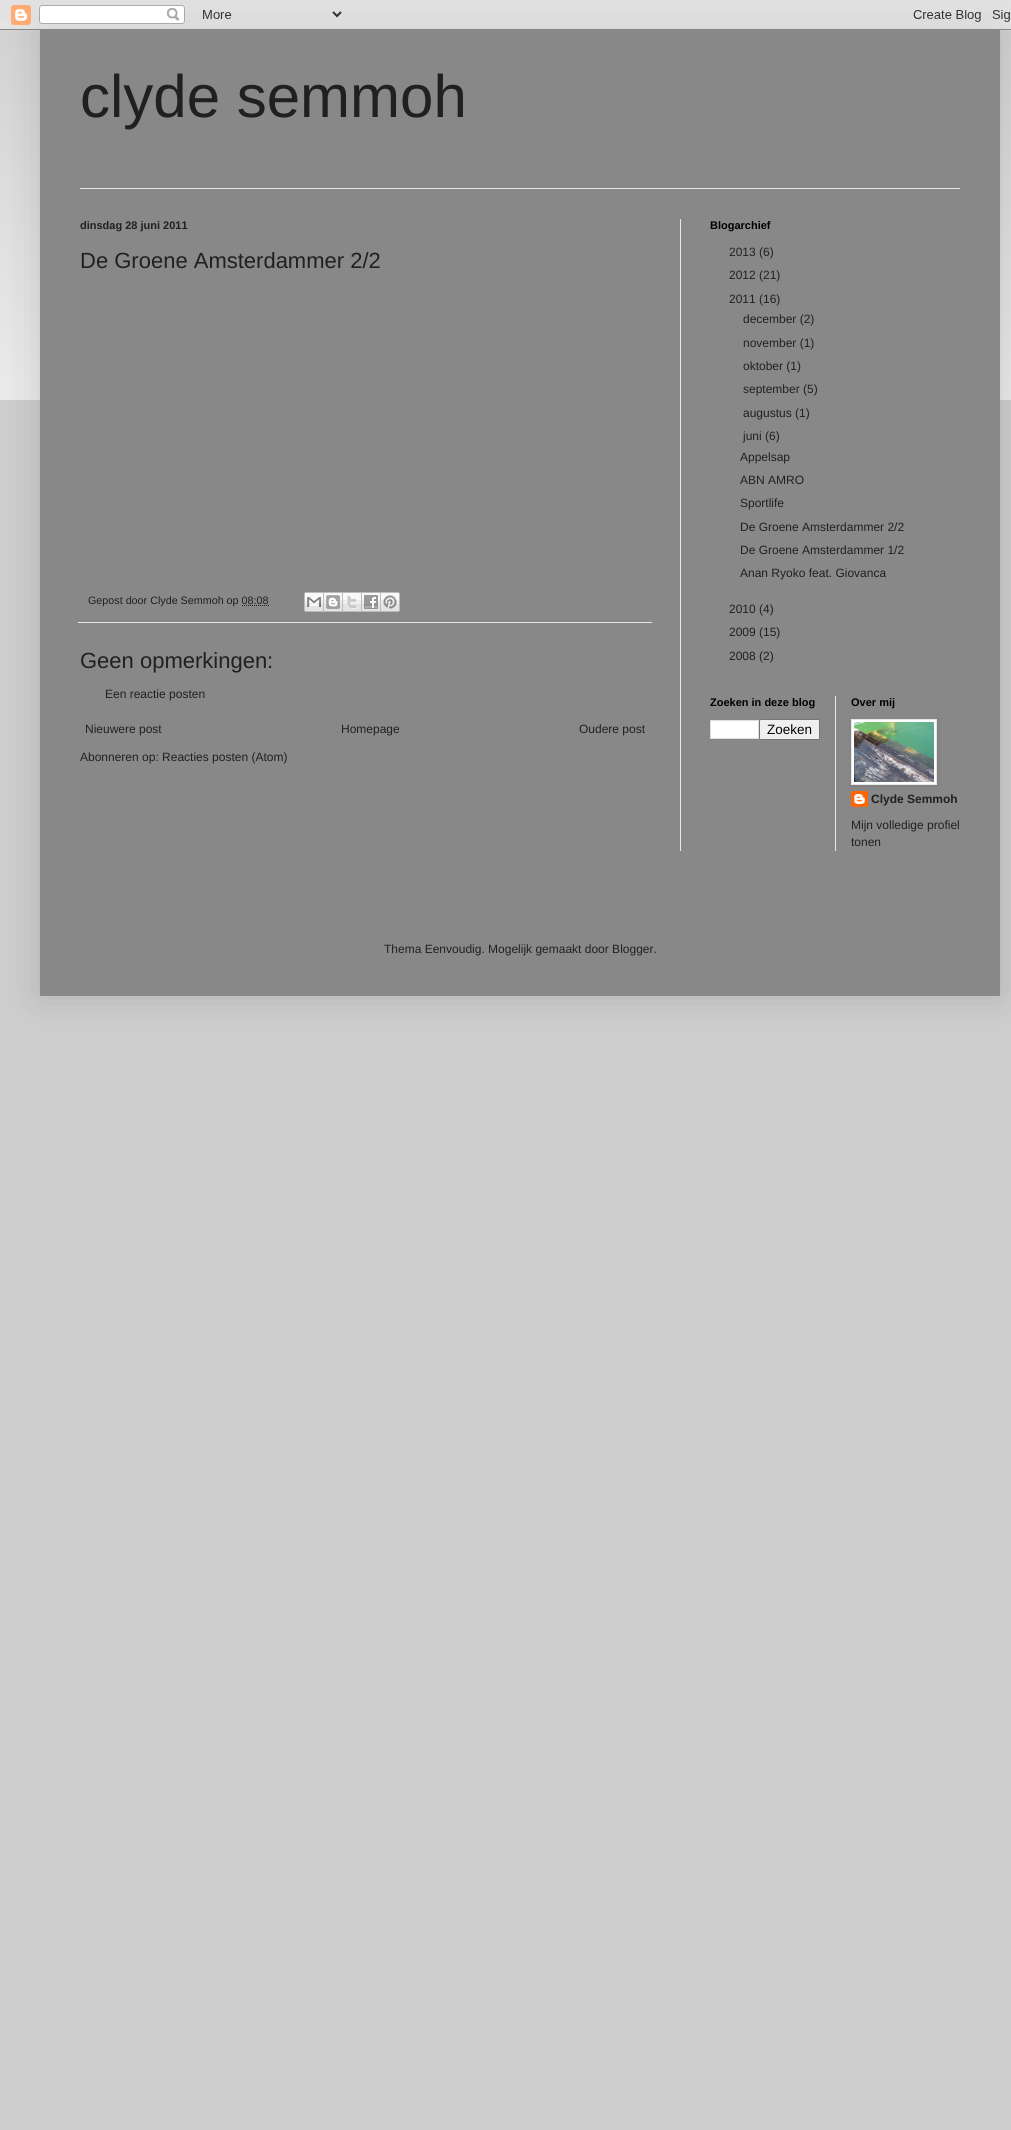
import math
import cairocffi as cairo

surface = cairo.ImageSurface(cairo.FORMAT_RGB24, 1011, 2130)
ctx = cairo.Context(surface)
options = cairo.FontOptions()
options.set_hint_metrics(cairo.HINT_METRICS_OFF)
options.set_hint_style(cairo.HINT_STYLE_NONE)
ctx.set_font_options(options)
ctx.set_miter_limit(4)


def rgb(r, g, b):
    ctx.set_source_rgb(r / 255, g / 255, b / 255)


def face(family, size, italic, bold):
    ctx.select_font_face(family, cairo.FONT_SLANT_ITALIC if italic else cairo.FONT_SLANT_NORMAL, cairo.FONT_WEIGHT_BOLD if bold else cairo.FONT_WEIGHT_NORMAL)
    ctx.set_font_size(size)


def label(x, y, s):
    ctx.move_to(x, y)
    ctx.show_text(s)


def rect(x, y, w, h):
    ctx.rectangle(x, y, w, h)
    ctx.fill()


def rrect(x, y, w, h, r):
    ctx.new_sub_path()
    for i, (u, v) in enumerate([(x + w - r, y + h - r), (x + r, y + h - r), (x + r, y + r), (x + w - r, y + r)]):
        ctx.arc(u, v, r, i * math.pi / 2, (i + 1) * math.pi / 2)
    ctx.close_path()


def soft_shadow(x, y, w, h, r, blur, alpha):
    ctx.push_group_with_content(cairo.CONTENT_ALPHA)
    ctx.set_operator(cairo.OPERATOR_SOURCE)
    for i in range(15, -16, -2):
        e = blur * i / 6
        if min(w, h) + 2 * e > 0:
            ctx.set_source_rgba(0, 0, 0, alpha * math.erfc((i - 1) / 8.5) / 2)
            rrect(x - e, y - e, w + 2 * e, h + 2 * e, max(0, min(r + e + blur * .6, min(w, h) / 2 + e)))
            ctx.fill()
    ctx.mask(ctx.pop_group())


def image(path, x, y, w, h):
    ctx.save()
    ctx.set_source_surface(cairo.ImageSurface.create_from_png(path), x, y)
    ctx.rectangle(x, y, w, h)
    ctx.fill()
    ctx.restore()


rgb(206, 206, 206)
ctx.paint()
image('image1.png', 0, 21, 1011, 379)
rgb(0, 0, 0)
soft_shadow(40, 30, 960, 966, 0, 20, 0.15)
image('image0.png', 0, 0, 1011, 30)
rgb(136, 136, 136)
rect(40, 30, 960, 966)
face('Liberation Sans', 60, 0, 0)
rgb(32, 32, 32)
label(80, 117, 'clyde semmoh')
rgb(231, 231, 231)
rect(80, 188, 880, 1)
rect(680, 219, 1, 632)
face('Liberation Sans', 11, 0, 1)
rgb(32, 32, 32)
label(80, 229, 'dinsdag 28 juni 2011')
face('Liberation Sans', 22, 0, 0)
label(80, 268, 'De Groene Amsterdammer 2/2')
rgb(231, 231, 231)
rect(78, 622, 574, 1)
face('Liberation Sans', 10.75, 0, 0)
rgb(32, 32, 32)
label(88, 604, 'Gepost door Clyde Semmoh op 08:08')
image('image2.png', 304, 592, 20, 20)
image('image3.png', 324, 592, 19, 20)
image('image4.png', 343, 592, 19, 20)
image('image5.png', 362, 592, 19, 20)
image('image6.png', 381, 592, 19, 20)
ctx.new_path()
ctx.move_to(242, 605.5)
ctx.line_to(269.5, 605.5)
ctx.set_line_width(1)
ctx.set_dash([1, 1])
ctx.stroke()
face('Liberation Sans', 22, 0, 0)
label(80, 668, 'Geen opmerkingen:')
face('Liberation Sans', 12, 0, 0)
label(105, 698, 'Een reactie posten')
label(85, 733, 'Nieuwere post')
label(341, 733, 'Homepage')
label(579, 733, 'Oudere post')
label(80, 761, 'Abonneren op: Reacties posten (Atom)')
face('Liberation Sans', 11, 0, 1)
rgb(0, 0, 0)
label(710, 229, 'Blogarchief')
face('Liberation Sans', 12, 0, 0)
rgb(32, 32, 32)
label(729, 256, '2013 (6)')
label(729, 279, '2012 (21)')
label(729, 303, '2011 (16)')
label(743, 323, 'december (2)')
label(743, 347, 'november (1)')
label(743, 370, 'oktober (1)')
label(743, 393, 'september (5)')
label(743, 417, 'augustus (1)')
label(743, 440, 'juni (6)')
label(740, 461, 'Appelsap')
label(740, 484, 'ABN AMRO')
label(740, 507, 'Sportlife')
label(740, 531, 'De Groene Amsterdammer 2/2')
label(740, 554, 'De Groene Amsterdammer 1/2')
label(740, 577, 'Anan Ryoko feat. Giovanca')
label(729, 613, '2010 (4)')
label(729, 636, '2009 (15)')
label(729, 660, '2008 (2)')
face('Liberation Sans', 11, 0, 1)
rgb(0, 0, 0)
label(710, 706, 'Zoeken in deze blog')
rgb(255, 255, 255)
ctx.rectangle(710.5, 720.5, 48, 18)
ctx.fill_preserve()
rgb(221, 221, 221)
ctx.set_dash([])
ctx.stroke()
rgb(239, 239, 239)
rrect(759.5, 719.5, 60, 20, 1.5)
ctx.fill_preserve()
rgb(118, 118, 118)
ctx.stroke()
face('Liberation Sans', 13.5, 0, 0)
rgb(0, 0, 0)
label(767, 734, 'Zoeken')
rgb(231, 231, 231)
rect(835, 696, 1, 155)
face('Liberation Sans', 11, 0, 1)
rgb(0, 0, 0)
label(851, 706, 'Over mij')
image('image8.png', 851, 791, 17, 16)
rgb(0, 0, 0)
soft_shadow(852, 720, 86, 66, 0, 2.5, 0.1)
rgb(255, 255, 255)
ctx.rectangle(851.5, 719.5, 85, 65)
ctx.fill_preserve()
rgb(231, 231, 231)
ctx.stroke()
image('image7.png', 854, 722, 80, 60)
face('Liberation Sans', 12, 0, 1)
rgb(32, 32, 32)
label(871, 803, 'Clyde Semmoh')
face('Liberation Sans', 12, 0, 0)
label(851, 829, 'Mijn volledige profiel')
label(851, 846, 'tonen')
label(384, 953, 'Thema Eenvoudig. Mogelijk gemaakt door Blogger.')
surface.write_to_png('render.png')
